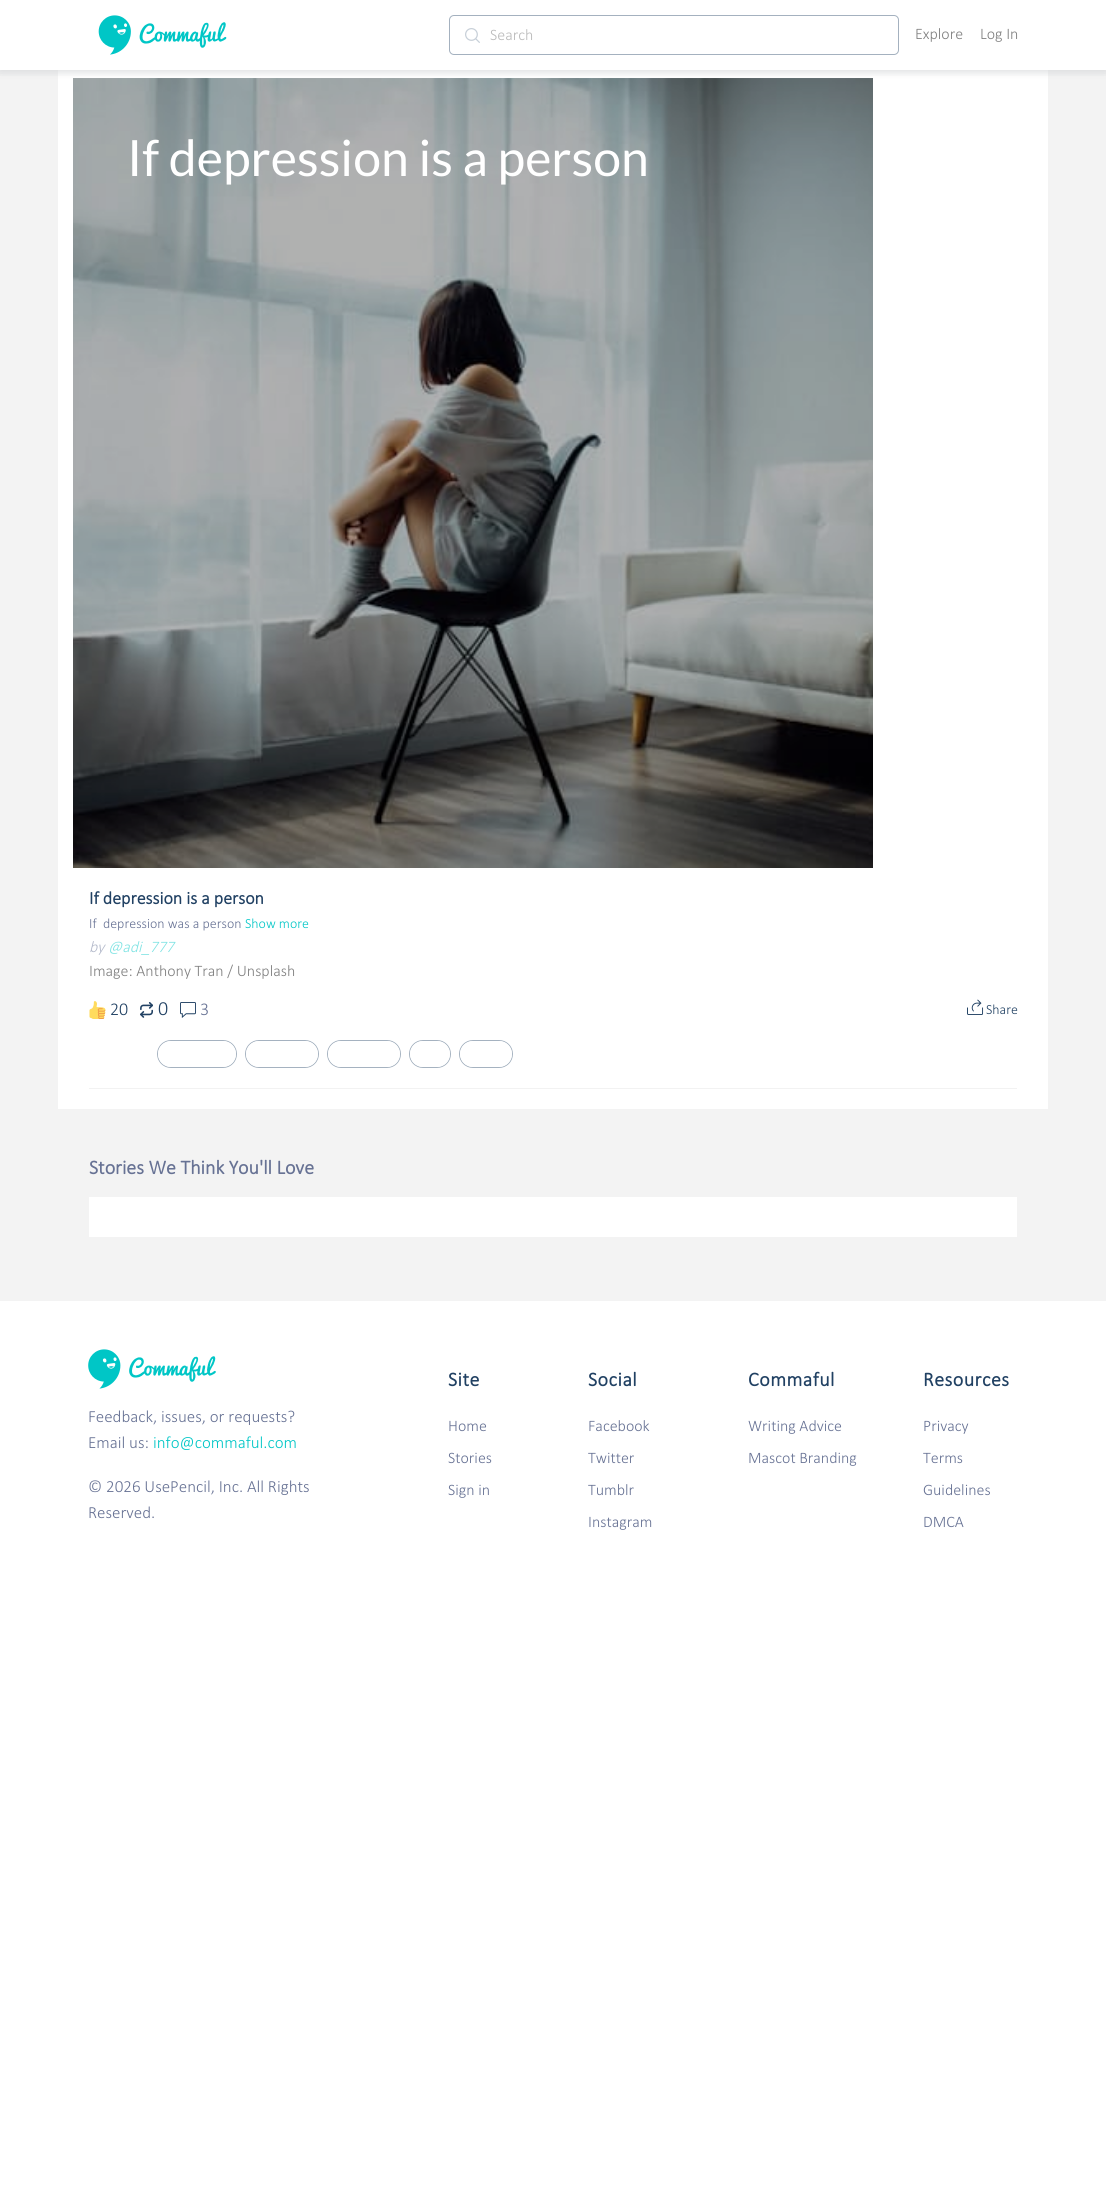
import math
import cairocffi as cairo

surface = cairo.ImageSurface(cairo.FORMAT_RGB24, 1106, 2199)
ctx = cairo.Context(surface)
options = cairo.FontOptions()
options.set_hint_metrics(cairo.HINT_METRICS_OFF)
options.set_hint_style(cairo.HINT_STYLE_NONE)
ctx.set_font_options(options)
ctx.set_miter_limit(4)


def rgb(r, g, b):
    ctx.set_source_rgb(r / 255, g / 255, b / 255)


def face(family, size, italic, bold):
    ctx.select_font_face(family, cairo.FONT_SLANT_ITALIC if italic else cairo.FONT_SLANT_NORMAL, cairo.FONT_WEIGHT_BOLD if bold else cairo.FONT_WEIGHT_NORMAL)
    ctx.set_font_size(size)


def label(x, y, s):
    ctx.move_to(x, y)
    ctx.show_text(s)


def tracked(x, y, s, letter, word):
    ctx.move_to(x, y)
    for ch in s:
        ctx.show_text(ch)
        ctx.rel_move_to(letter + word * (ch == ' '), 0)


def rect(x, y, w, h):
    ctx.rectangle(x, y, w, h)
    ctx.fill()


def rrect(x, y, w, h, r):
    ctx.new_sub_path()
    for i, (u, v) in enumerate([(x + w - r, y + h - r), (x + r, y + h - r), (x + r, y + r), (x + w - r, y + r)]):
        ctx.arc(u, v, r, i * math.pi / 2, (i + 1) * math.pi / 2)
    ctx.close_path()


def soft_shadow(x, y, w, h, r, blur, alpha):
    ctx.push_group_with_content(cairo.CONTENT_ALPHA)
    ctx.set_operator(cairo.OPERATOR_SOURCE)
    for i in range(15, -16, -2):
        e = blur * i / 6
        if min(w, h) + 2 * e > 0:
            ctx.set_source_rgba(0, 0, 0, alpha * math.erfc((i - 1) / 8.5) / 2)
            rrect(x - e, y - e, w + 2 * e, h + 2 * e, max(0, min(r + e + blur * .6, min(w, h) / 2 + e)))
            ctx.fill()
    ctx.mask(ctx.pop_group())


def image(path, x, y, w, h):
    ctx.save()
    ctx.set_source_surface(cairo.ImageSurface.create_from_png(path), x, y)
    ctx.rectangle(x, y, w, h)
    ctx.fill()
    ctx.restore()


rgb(255, 255, 255)
ctx.paint()
rgb(243, 243, 243)
rect(0, 70, 1106, 1231)
rgb(255, 255, 255)
rect(58, 70, 990, 1039)
image('image2.png', 73, 78, 800, 790)
ctx.save()
ctx.rectangle(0, 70, 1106, 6)
ctx.clip()
rgb(33, 65, 99)
soft_shadow(0, 2, 1106, 70, 0, 5, 0.1)
ctx.restore()
ctx.save()
ctx.rectangle(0, 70, 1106, 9)
ctx.clip()
rgb(220, 220, 220)
soft_shadow(0, 0, 1106, 70, 0, 4.5, 1)
ctx.restore()
image('image0.png', 98, 15, 129, 40)
image('image1.png', 465, 28, 15, 15)
ctx.set_source_rgba(1, 1, 1, 0.5)
rrect(449.5, 15.5, 449, 39, 4.5)
ctx.fill_preserve()
rgb(164, 177, 191)
ctx.set_line_width(1)
ctx.stroke()
face('Calibri Light', 16, 0, 0)
rgb(186, 186, 186)
label(490, 40, 'Search')
rgb(128, 128, 128)
label(915, 39, 'Explore')
label(980, 39, 'Log In')
face('Lato', 50, 0, 0)
rgb(255, 255, 255)
label(127, 176, 'If depression is a person')
face('Calibri', 18, 0, 1)
rgb(33, 65, 99)
label(89, 904, 'If depression is a person')
face('Calibri Light', 14, 0, 0)
rgb(103, 114, 148)
label(89, 928, 'If  depression was a person')
rgb(0, 198, 198)
label(245, 928, 'Show more')
face('Calibri Light', 16, 1, 0)
rgb(179, 185, 202)
label(89, 952, 'by')
rgb(128, 227, 227)
label(108, 952, '@adi_777')
face('Calibri Light', 16, 0, 0)
rgb(128, 128, 128)
label(89, 976, 'Image: Anthony Tran / Unsplash')
image('image3.png', 89, 1001, 17, 18)
face('Calibri Light', 18, 0, 0)
rgb(33, 65, 99)
label(110, 1015, '20')
image('image4.png', 140, 1002, 13, 16)
face('Calibri Light', 20, 0, 0)
label(158, 1015, '0')
image('image5.png', 180, 1002, 16, 16)
face('Calibri Light', 18, 0, 0)
rgb(103, 114, 148)
label(200, 1015, '3')
image('image6.png', 967, 999, 17, 16)
face('Calibri Light', 14, 0, 0)
rgb(33, 65, 99)
label(986, 1014, 'Share')
rrect(157.5, 1040.5, 79, 27, 13.5)
rgb(165, 178, 192)
ctx.stroke()
rgb(255, 255, 255)
rrect(158, 1041, 78, 26, 13)
ctx.fill()
rrect(245.5, 1040.5, 73, 27, 13.5)
rgb(165, 178, 192)
ctx.stroke()
rgb(255, 255, 255)
rrect(246, 1041, 72, 26, 13)
ctx.fill()
rrect(327.5, 1040.5, 73, 27, 13.5)
rgb(165, 178, 192)
ctx.stroke()
rgb(255, 255, 255)
rrect(328, 1041, 72, 26, 13)
ctx.fill()
rrect(409.5, 1040.5, 41, 27, 13.5)
rgb(165, 178, 192)
ctx.stroke()
rgb(255, 255, 255)
rrect(410, 1041, 40, 26, 13)
ctx.fill()
rrect(459.5, 1040.5, 53, 27, 13.5)
rgb(165, 178, 192)
ctx.stroke()
rgb(255, 255, 255)
rrect(460, 1041, 52, 26, 13)
ctx.fill()
rgb(242, 242, 242)
rect(89, 1088, 928, 1)
face('Calibri', 20, 0, 1)
rgb(103, 114, 148)
label(89, 1174, 'Stories We Think You\'ll Love')
rgb(255, 255, 255)
rect(89, 1197, 928, 40)
image('image7.png', 88, 1349, 128, 40)
face('Calibri Light', 17, 0, 0)
rgb(103, 114, 148)
label(88, 1422, 'Feedback, issues, or requests?')
label(88, 1448, 'Email us:')
rgb(0, 198, 198)
label(153, 1448, 'info@commaful.com')
rgb(103, 114, 148)
label(88, 1492, '© 2026 UsePencil, Inc. All Rights')
label(88, 1518, 'Reserved.')
face('Calibri', 20, 0, 1)
rgb(33, 65, 99)
tracked(448, 1386, 'Site', 0.5, 0)
face('Calibri Light', 16, 0, 0)
rgb(103, 114, 148)
label(448, 1431, 'Home')
label(448, 1463, 'Stories')
label(448, 1495, 'Sign in')
face('Calibri', 20, 0, 1)
rgb(33, 65, 99)
tracked(588, 1386, 'Social', 0.5, 0)
face('Calibri Light', 16, 0, 0)
rgb(103, 114, 148)
label(588, 1431, 'Facebook')
label(588, 1463, 'Twitter')
label(588, 1495, 'Tumblr')
label(588, 1527, 'Instagram')
face('Calibri', 20, 0, 1)
rgb(33, 65, 99)
tracked(748, 1386, 'Commaful', 0.5, 0)
face('Calibri Light', 16, 0, 0)
rgb(103, 114, 148)
label(748, 1431, 'Writing Advice')
label(748, 1463, 'Mascot Branding')
face('Calibri', 20, 0, 1)
rgb(33, 65, 99)
tracked(923, 1386, 'Resources', 0.5, 0)
face('Calibri Light', 16, 0, 0)
rgb(103, 114, 148)
label(923, 1431, 'Privacy')
label(923, 1463, 'Terms')
label(923, 1495, 'Guidelines')
label(923, 1527, 'DMCA')
surface.write_to_png('render.png')
